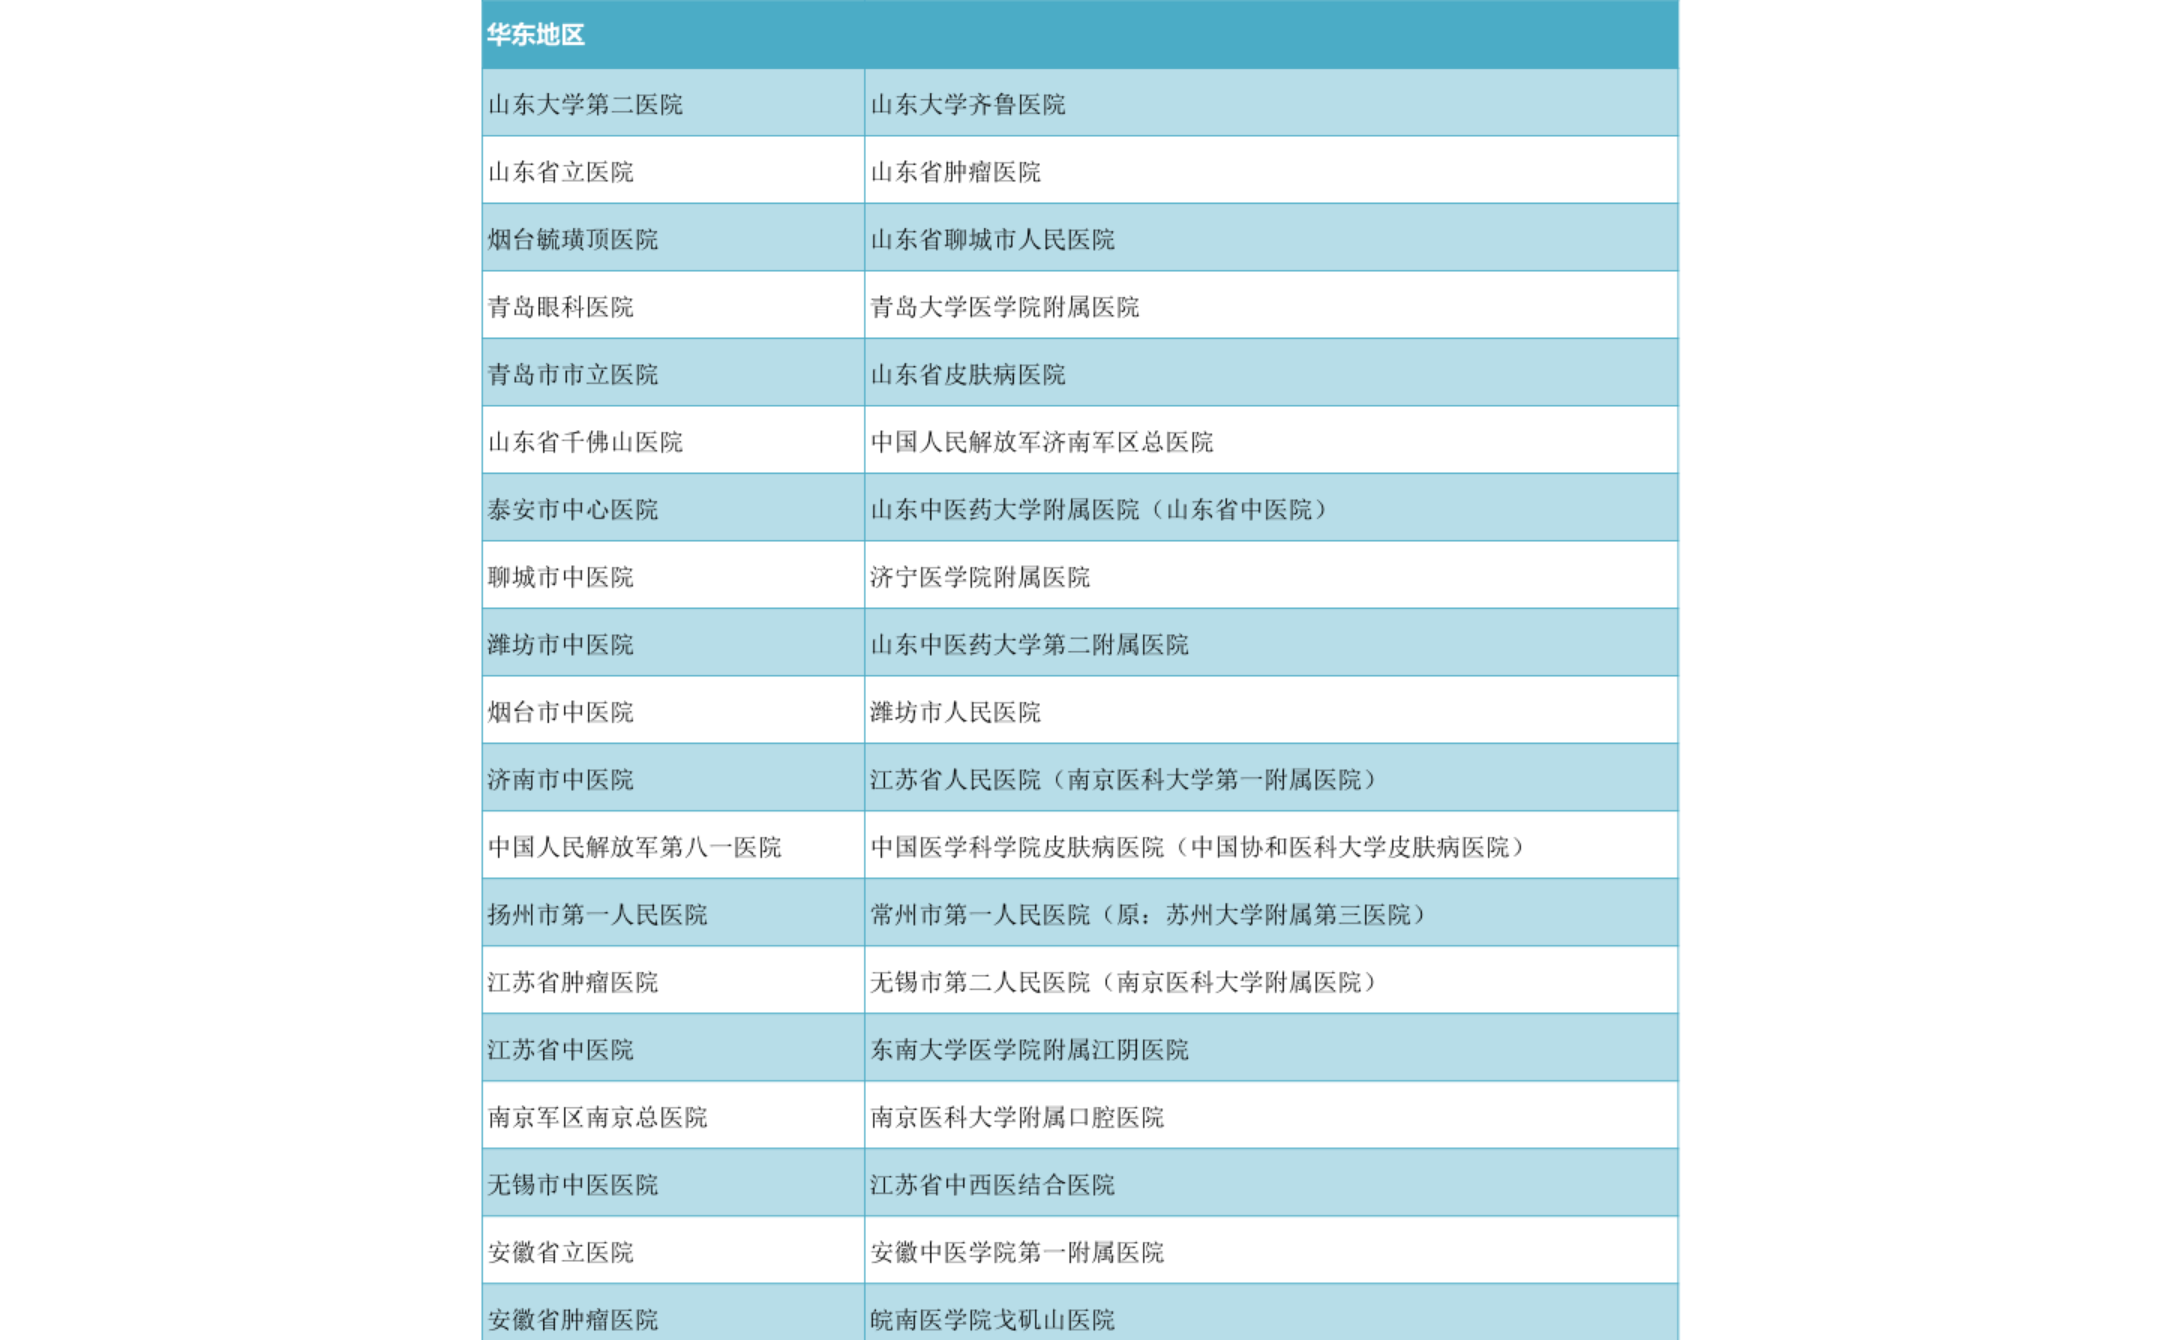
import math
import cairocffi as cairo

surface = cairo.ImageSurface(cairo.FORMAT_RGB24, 2162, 1340)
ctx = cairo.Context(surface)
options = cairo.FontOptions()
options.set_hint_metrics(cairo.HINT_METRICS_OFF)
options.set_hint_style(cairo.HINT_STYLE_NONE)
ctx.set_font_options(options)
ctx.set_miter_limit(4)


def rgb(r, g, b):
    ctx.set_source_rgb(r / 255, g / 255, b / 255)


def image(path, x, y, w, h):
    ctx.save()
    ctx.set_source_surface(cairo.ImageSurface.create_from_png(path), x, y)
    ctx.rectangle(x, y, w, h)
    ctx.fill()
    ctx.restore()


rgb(255, 255, 255)
ctx.paint()
image('image0.png', 481, 0, 1200, 1340)
surface.write_to_png('render.png')
